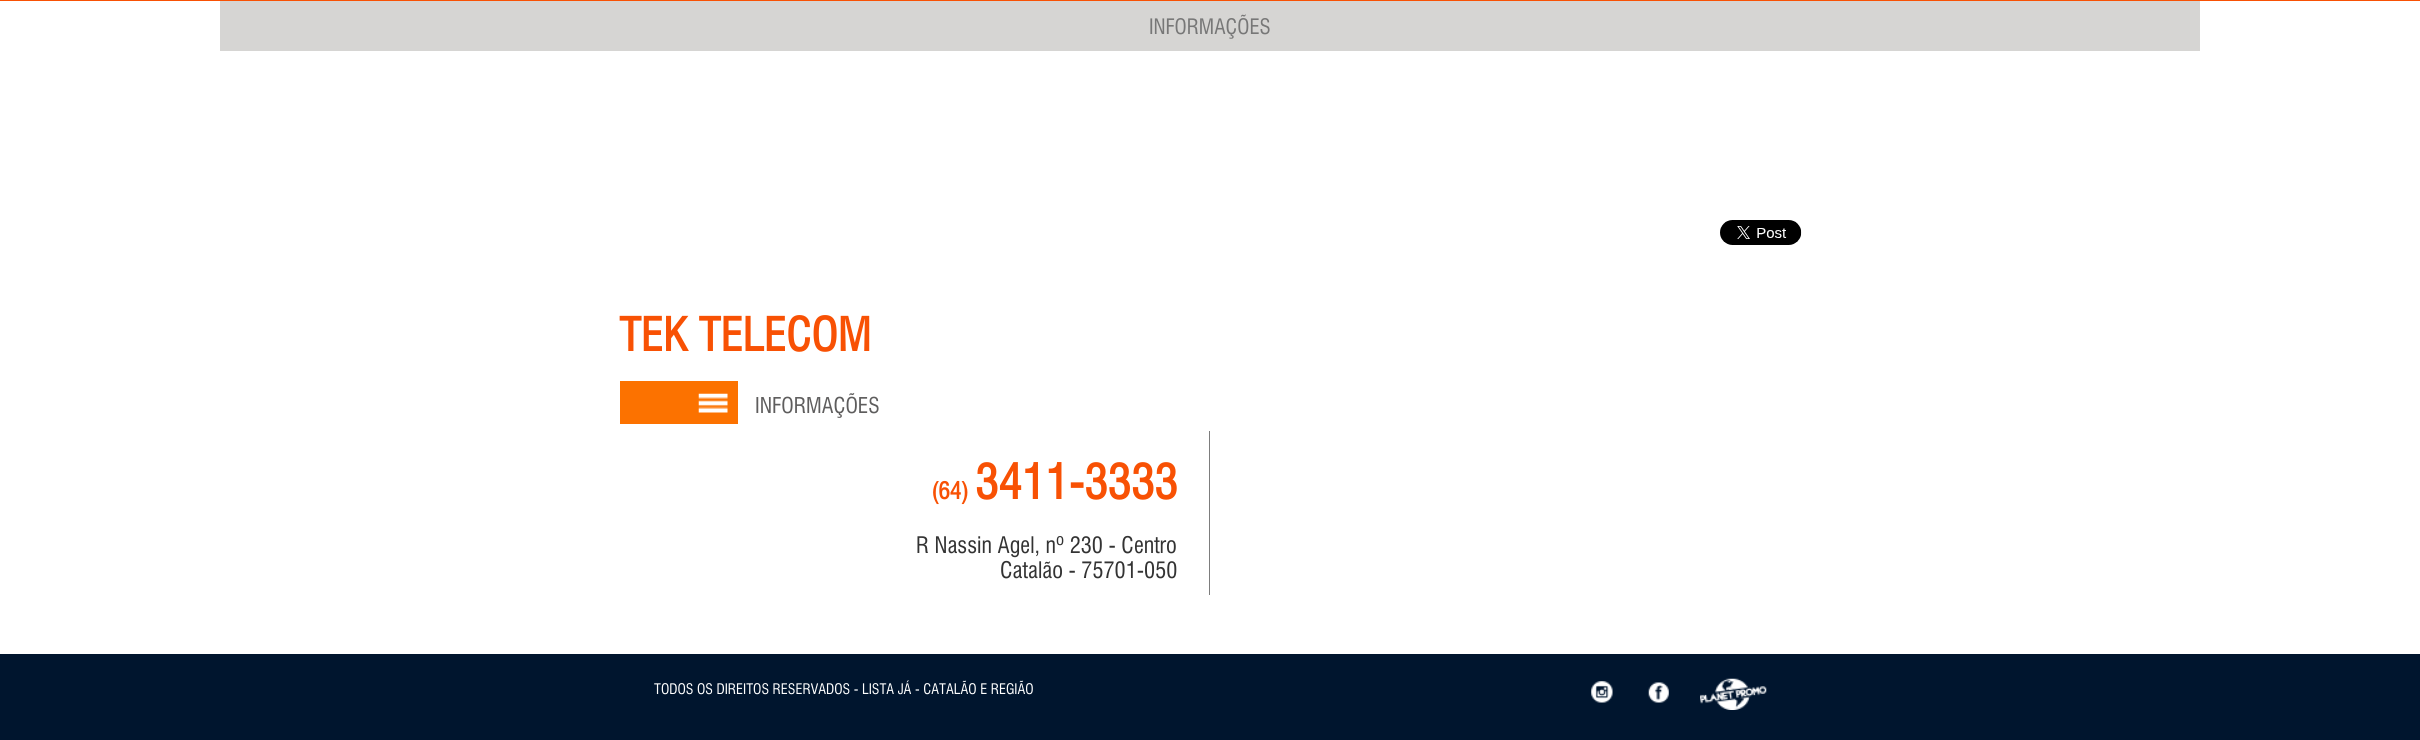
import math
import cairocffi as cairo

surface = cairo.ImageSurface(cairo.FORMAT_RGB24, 2420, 740)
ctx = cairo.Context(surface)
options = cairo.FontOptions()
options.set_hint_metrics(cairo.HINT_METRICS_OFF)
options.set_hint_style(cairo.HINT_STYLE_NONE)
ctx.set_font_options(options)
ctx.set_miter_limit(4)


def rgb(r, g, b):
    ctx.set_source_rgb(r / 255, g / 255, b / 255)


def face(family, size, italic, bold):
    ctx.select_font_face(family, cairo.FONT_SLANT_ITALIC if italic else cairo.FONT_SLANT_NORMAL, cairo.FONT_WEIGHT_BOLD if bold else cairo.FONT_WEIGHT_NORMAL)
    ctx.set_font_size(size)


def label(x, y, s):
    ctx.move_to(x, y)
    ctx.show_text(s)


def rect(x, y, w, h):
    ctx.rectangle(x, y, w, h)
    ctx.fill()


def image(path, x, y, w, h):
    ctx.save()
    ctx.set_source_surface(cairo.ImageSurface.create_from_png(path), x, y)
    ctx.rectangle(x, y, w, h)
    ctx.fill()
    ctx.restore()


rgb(255, 255, 255)
ctx.paint()
rgb(248, 81, 4)
rect(0, 0, 2420, 1)
rgb(214, 213, 211)
rect(220, 1, 1980, 50)
face('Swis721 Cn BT', 20.75, 0, 0)
rgb(119, 119, 119)
label(1149, 34, 'INFORMAÇÕES')
image('image0.png', 1720, 220, 82, 25)
face('Swis721 Cn BT', 45, 0, 1)
rgb(248, 81, 4)
label(619, 351, 'TEK TELECOM')
rgb(252, 114, 0)
rect(620, 381, 118, 43)
face('Swis721 Cn BT', 21.25, 0, 0)
rgb(94, 93, 93)
label(755, 413, 'INFORMAÇÕES')
image('image1.png', 698, 393, 30, 20)
rgb(125, 125, 125)
rect(1209, 431, 1, 164)
face('Swis721 Cn BT', 23, 0, 1)
rgb(248, 81, 4)
label(931, 499, '(64)')
face('Swis721 Cn BT', 47, 0, 1)
label(975, 499, '3411-3333')
face('Swis721 Cn BT', 22.25, 0, 0)
rgb(51, 51, 51)
label(916, 553, 'R Nassin Agel, nº 230 - Centro')
label(1000, 578, 'Catalão - 75701-050')
rgb(0, 21, 46)
rect(0, 654, 2420, 86)
face('Swis721 Cn BT', 14.2, 0, 0)
rgb(255, 255, 255)
label(654, 694, 'TODOS OS DIREITOS RESERVADOS - LISTA JÁ - CATALÃO E REGIÃO')
image('image2.png', 1591, 681, 22, 22)
image('image3.png', 1648, 682, 21, 21)
image('image4.png', 1700, 678, 67, 32)
surface.write_to_png('render.png')
